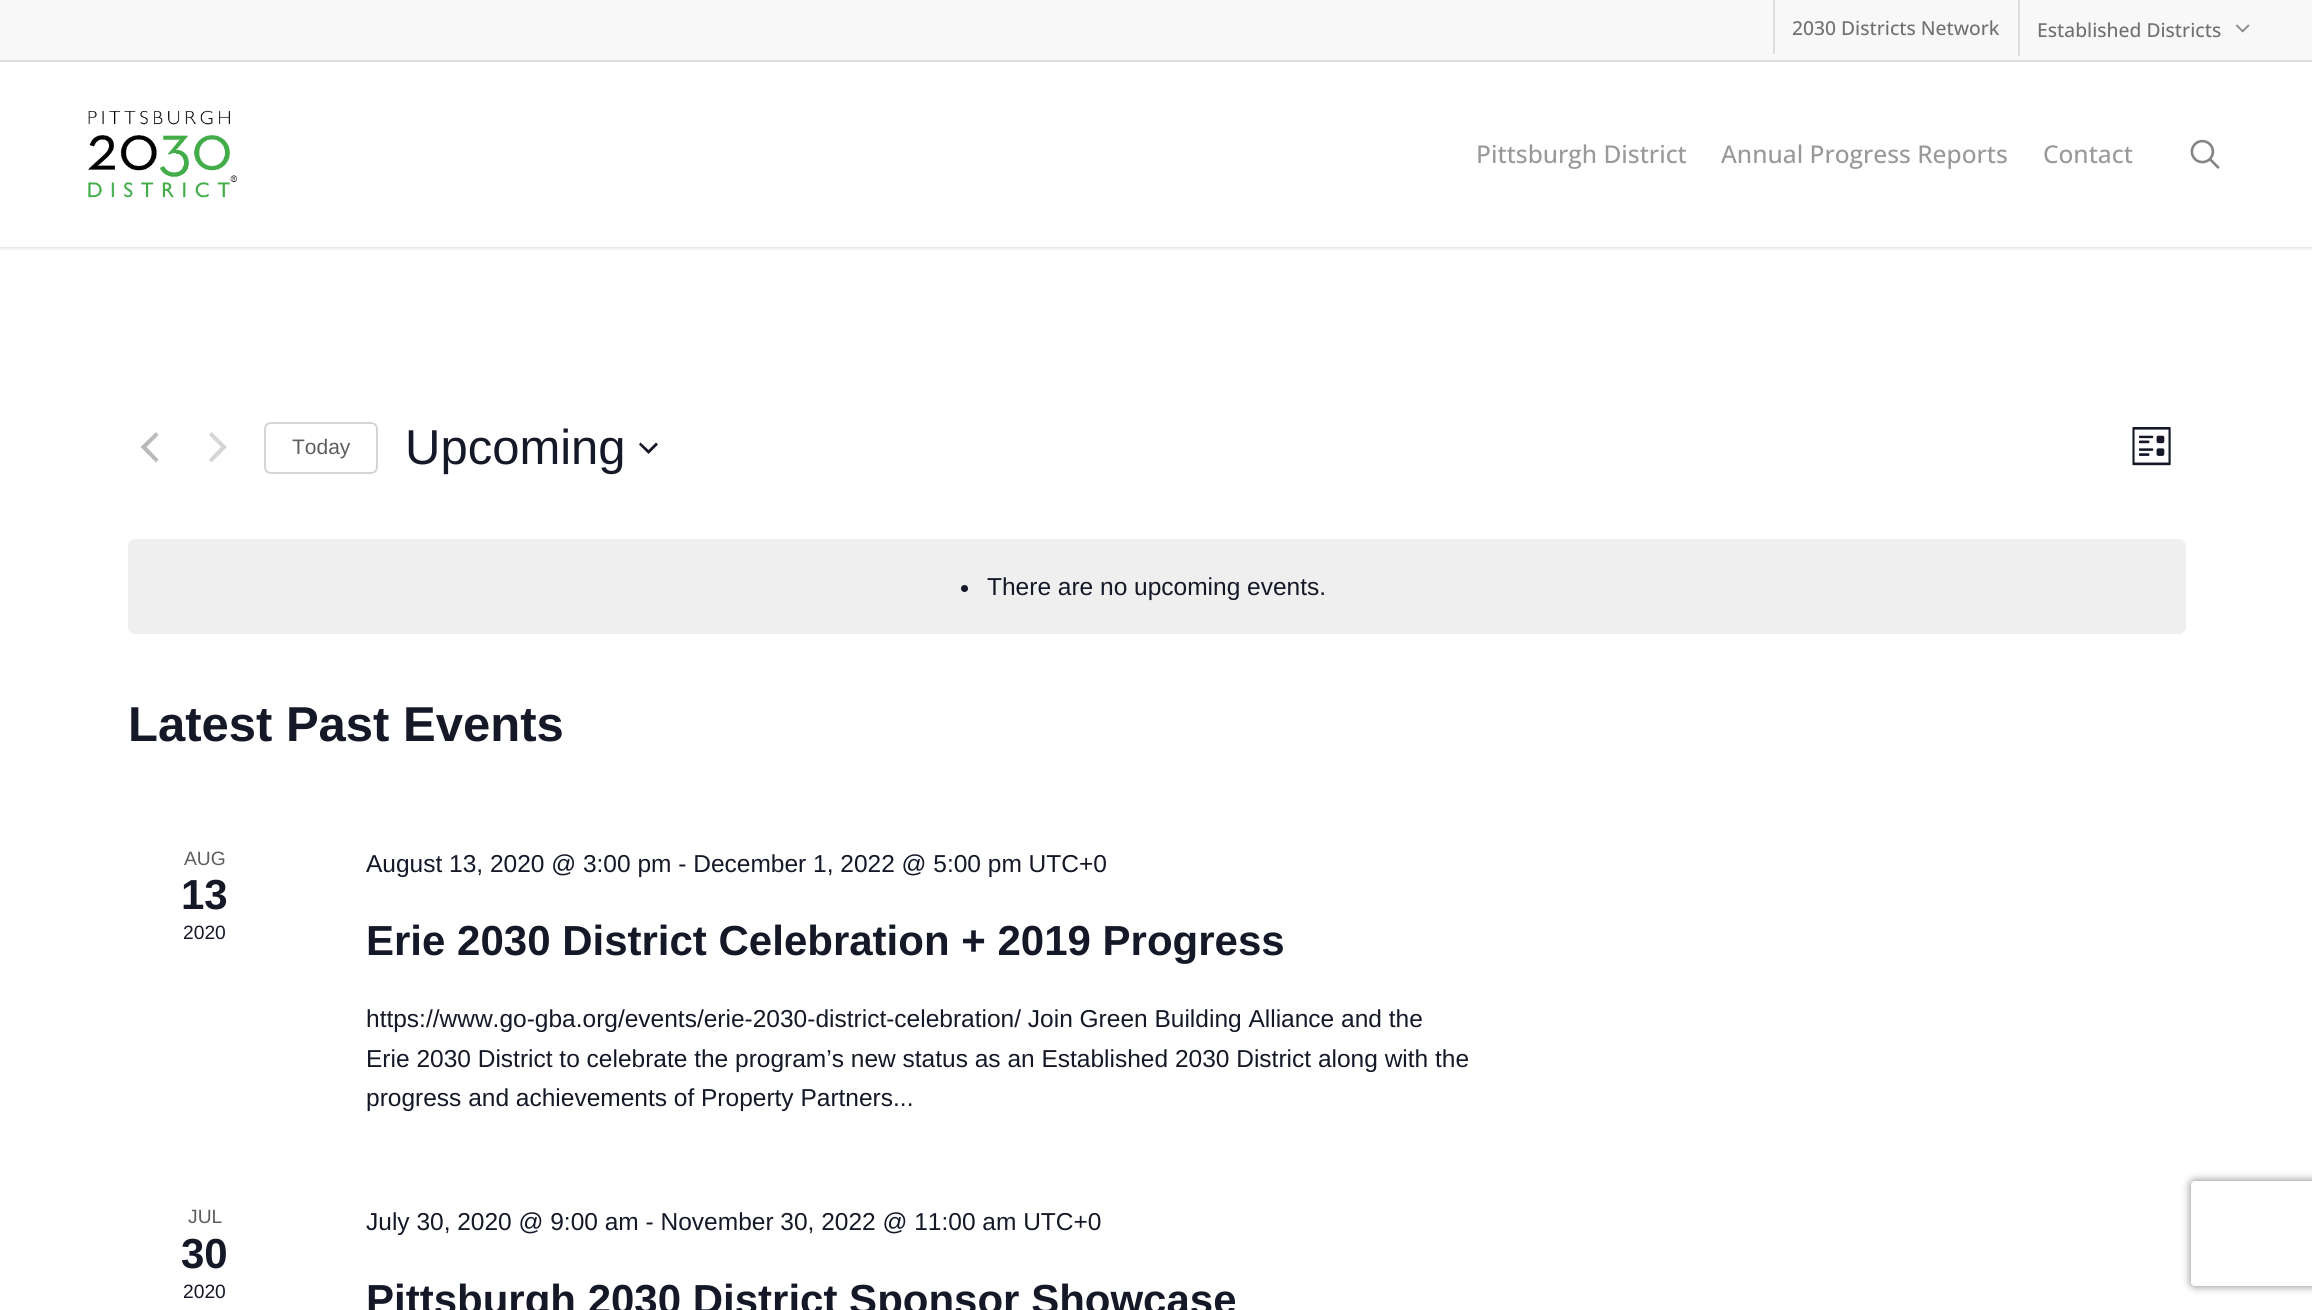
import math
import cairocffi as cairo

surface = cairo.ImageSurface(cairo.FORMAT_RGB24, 2312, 1310)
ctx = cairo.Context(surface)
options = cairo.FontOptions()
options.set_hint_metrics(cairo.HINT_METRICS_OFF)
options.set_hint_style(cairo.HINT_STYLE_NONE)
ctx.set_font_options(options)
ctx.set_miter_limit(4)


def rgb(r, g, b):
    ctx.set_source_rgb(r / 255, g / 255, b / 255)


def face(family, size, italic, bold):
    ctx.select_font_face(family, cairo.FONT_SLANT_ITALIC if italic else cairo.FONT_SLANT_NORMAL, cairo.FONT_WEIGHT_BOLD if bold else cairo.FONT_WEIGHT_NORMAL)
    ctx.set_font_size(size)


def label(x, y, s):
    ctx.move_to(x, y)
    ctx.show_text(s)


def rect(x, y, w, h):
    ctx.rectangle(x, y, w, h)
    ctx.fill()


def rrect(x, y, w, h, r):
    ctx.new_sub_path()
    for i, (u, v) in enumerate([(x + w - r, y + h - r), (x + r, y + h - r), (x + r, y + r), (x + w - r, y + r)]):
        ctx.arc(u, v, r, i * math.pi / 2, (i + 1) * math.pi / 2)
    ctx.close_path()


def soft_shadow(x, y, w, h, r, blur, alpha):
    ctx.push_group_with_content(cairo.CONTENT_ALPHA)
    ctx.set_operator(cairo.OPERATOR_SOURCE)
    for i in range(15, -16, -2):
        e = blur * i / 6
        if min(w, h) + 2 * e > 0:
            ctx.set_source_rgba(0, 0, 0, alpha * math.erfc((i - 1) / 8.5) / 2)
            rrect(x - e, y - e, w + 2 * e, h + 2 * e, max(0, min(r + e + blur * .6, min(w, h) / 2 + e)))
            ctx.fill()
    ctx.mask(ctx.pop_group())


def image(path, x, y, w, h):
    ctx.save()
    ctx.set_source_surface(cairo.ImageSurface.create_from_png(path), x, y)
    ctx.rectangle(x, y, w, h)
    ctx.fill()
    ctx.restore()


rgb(255, 255, 255)
ctx.paint()
rgb(0, 0, 0)
soft_shadow(0, 0, 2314, 247, 0, 2.5, 0.22)
rgb(255, 255, 255)
rect(0, 62, 2312, 185)
rgb(248, 248, 248)
rect(0, 0, 2312, 60)
rgb(221, 221, 221)
rect(0, 60, 2312, 2)
rect(1773, 0, 2, 54)
face('Open Sans Medium', 19.25, 0, 0)
rgb(112, 112, 112)
label(1792, 35, '2030 Districts Network')
rgb(221, 221, 221)
rect(2018, 0, 2, 56)
rgb(112, 112, 112)
label(2037, 37, 'Established Districts')
image('image0.png', 2235, 24, 15, 9)
image('image1.png', 88, 110, 149, 88)
face('Open Sans Medium', 24.5, 0, 0)
rgb(153, 153, 153)
label(1476, 163, 'Pittsburgh District')
label(1721, 163, 'Annual Progress Reports')
label(2043, 163, 'Contact')
image('image2.png', 2190, 139, 30, 30)
rgb(186, 186, 186)
ctx.new_path()
ctx.move_to(158.5, 459.5)
ctx.line_to(156, 462.5)
ctx.line_to(140.5, 447)
ctx.line_to(156, 432)
ctx.line_to(158.5, 435)
ctx.line_to(146.5, 447)
ctx.close_path()
ctx.fill()
rgb(213, 213, 213)
ctx.new_path()
ctx.move_to(209, 435)
ctx.line_to(211.5, 432)
ctx.line_to(227, 447)
ctx.line_to(211.5, 462.5)
ctx.line_to(209, 459.5)
ctx.line_to(221, 447)
ctx.close_path()
ctx.fill()
rrect(265, 423, 112, 50, 6)
ctx.stroke()
face('Liberation Sans', 21, 0, 0)
rgb(93, 93, 93)
label(292, 454, 'Today')
face('Liberation Sans', 49, 0, 0)
rgb(20, 24, 39)
label(405, 464, 'Upcoming')
ctx.set_fill_rule(cairo.FILL_RULE_EVEN_ODD)
ctx.new_path()
ctx.move_to(640.5, 442.5)
ctx.line_to(648.5, 450)
ctx.line_to(656, 442.5)
ctx.line_to(658, 444.5)
ctx.line_to(648.5, 454)
ctx.line_to(639, 444.5)
ctx.close_path()
ctx.fill()
image('image3.png', 2132, 427, 39, 39)
rgb(239, 239, 240)
rrect(128, 539, 2058, 95, 7)
ctx.fill()
rgb(20, 24, 39)
ctx.arc(964.5, 588.5, 3.5, 0, 2 * math.pi)
ctx.fill()
face('Liberation Sans', 24.5, 0, 0)
label(987, 595, 'There are no upcoming events.')
face('Liberation Sans', 49, 0, 1)
label(128, 741, 'Latest Past Events')
face('Liberation Sans', 19.25, 0, 0)
rgb(93, 93, 93)
label(184, 865, 'AUG')
face('Liberation Sans', 42, 0, 1)
rgb(20, 24, 39)
label(181, 909, '13')
face('Liberation Sans', 19.25, 0, 0)
label(183, 939, '2020')
face('Liberation Sans', 24.5, 0, 0)
label(366, 872, 'August 13, 2020 @ 3:00 pm - December 1, 2022 @ 5:00 pm UTC+0')
face('Liberation Sans', 42, 0, 1)
label(366, 955, 'Erie 2030 District Celebration + 2019 Progress')
face('Liberation Sans', 24.5, 0, 0)
label(366, 1027, 'https://www.go-gba.org/events/erie-2030-district-celebration/ Join Green Building Alliance and the')
label(366, 1067, 'Erie 2030 District to celebrate the program’s new status as an Established 2030 District along with the')
label(366, 1106, 'progress and achievements of Property Partners...')
face('Liberation Sans', 19.25, 0, 0)
rgb(93, 93, 93)
label(188, 1223, 'JUL')
face('Liberation Sans', 42, 0, 1)
rgb(20, 24, 39)
label(181, 1268, '30')
face('Liberation Sans', 19.25, 0, 0)
label(183, 1298, '2020')
face('Liberation Sans', 24.5, 0, 0)
label(366, 1230, 'July 30, 2020 @ 9:00 am - November 30, 2022 @ 11:00 am UTC+0')
face('Liberation Sans', 42, 0, 1)
label(366, 1314, 'Pittsburgh 2030 District Sponsor Showcase')
ctx.save()
ctx.new_path()
ctx.move_to(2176, 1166)
ctx.line_to(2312, 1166)
ctx.line_to(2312, 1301)
ctx.line_to(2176, 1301)
ctx.close_path()
ctx.move_to(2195, 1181)
ctx.line_to(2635, 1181)
ctx.curve_to(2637, 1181, 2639, 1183, 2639, 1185)
ctx.line_to(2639, 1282)
ctx.curve_to(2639, 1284, 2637, 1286, 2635, 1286)
ctx.line_to(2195, 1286)
ctx.curve_to(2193, 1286, 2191, 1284, 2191, 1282)
ctx.line_to(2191, 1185)
ctx.curve_to(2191, 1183, 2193, 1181, 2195, 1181)
ctx.close_path()
ctx.clip()
rgb(128, 128, 128)
soft_shadow(2191, 1181, 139, 105, 4, 4.5, 1)
ctx.restore()
surface.write_to_png('render.png')
